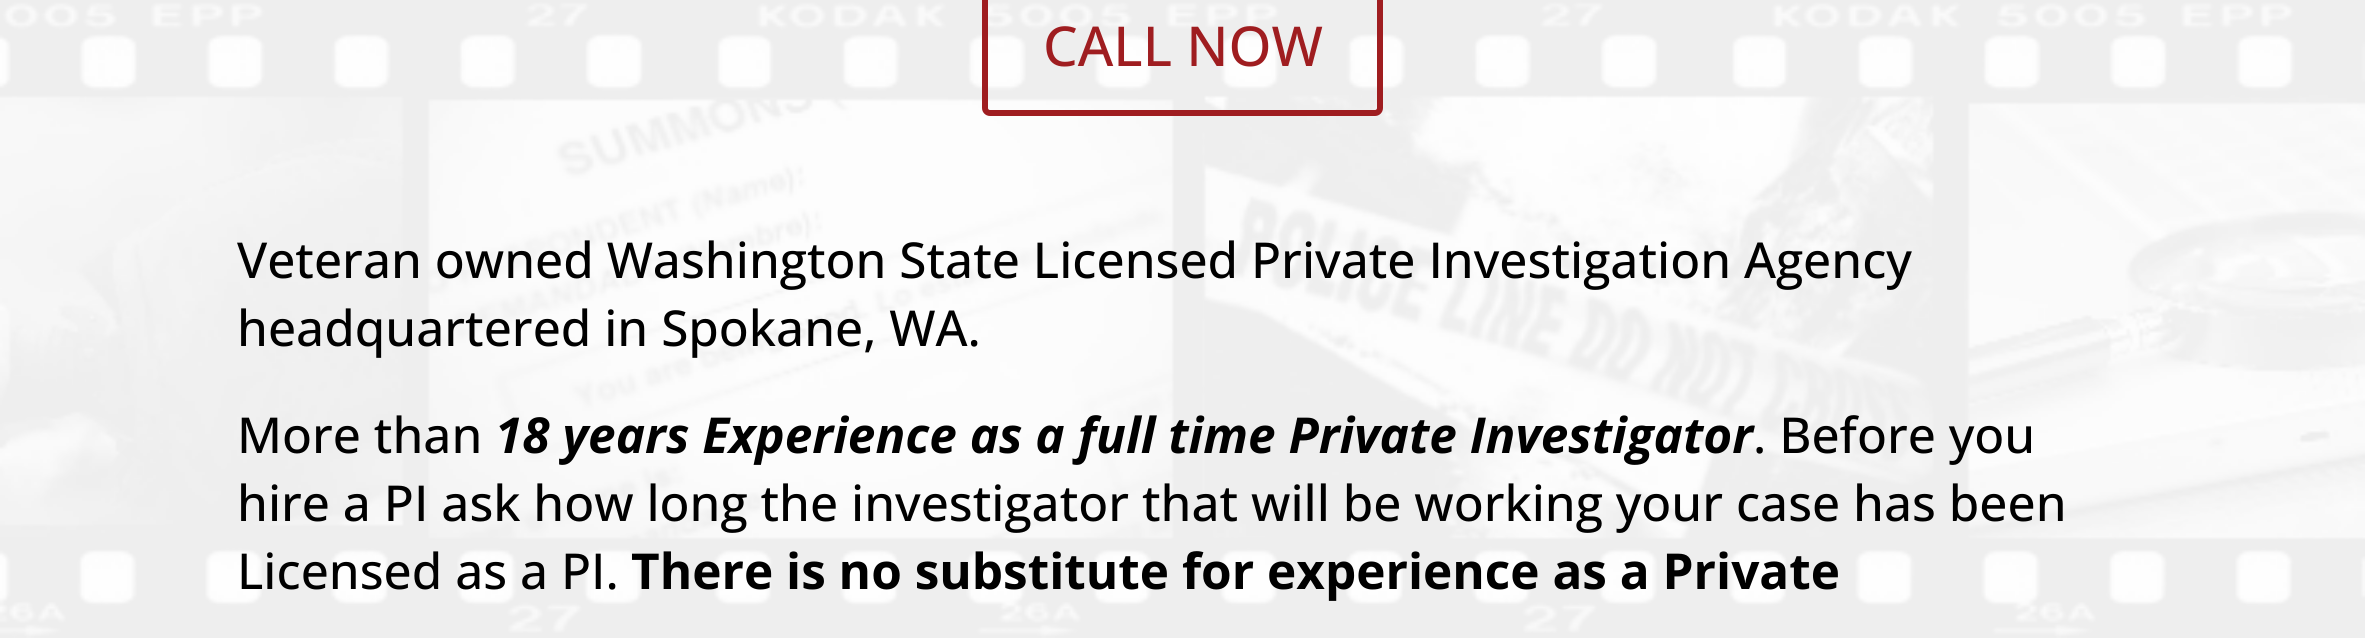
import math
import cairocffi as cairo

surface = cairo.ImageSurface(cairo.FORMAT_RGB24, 2365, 638)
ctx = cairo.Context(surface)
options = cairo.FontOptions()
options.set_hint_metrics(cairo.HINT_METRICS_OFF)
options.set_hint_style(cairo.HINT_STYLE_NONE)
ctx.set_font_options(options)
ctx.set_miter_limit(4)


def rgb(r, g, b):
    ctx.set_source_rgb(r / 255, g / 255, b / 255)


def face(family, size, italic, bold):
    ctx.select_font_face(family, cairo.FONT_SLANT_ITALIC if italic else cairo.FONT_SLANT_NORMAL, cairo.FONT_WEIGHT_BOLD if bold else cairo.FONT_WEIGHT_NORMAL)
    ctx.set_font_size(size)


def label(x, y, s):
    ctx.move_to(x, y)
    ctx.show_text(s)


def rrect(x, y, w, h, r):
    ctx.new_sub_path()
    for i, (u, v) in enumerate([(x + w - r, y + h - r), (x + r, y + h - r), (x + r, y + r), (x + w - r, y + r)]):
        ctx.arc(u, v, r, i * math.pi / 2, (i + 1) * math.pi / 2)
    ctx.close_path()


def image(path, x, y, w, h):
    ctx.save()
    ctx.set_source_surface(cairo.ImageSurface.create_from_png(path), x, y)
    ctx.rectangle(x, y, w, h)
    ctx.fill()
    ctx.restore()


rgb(255, 255, 255)
ctx.paint()
image('image0.png', 0, 0, 2365, 638)
rrect(985, -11, 395, 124, 5)
rgb(159, 29, 32)
ctx.set_line_width(6)
ctx.stroke()
face('Open Sans Medium', 55, 0, 0)
label(1043, 66, 'CALL NOW')
face('Open Sans Medium', 49.5, 0, 0)
rgb(0, 0, 0)
label(237, 278, 'Veteran owned Washington State Licensed Private Investigation Agency')
label(237, 346, 'headquartered in Spokane, WA.')
label(237, 453, 'More than')
face('Open Sans', 49.5, 1, 1)
label(495, 453, '18 years Experience as a full time Private Investigator')
face('Open Sans Medium', 49.5, 0, 0)
label(1753, 453, '. Before you')
label(237, 521, 'hire a PI ask how long the investigator that will be working your case has been')
label(237, 589, 'Licensed as a PI.')
face('Open Sans', 49.5, 0, 1)
label(631, 589, 'There is no substitute for experience as a Private')
surface.write_to_png('render.png')
